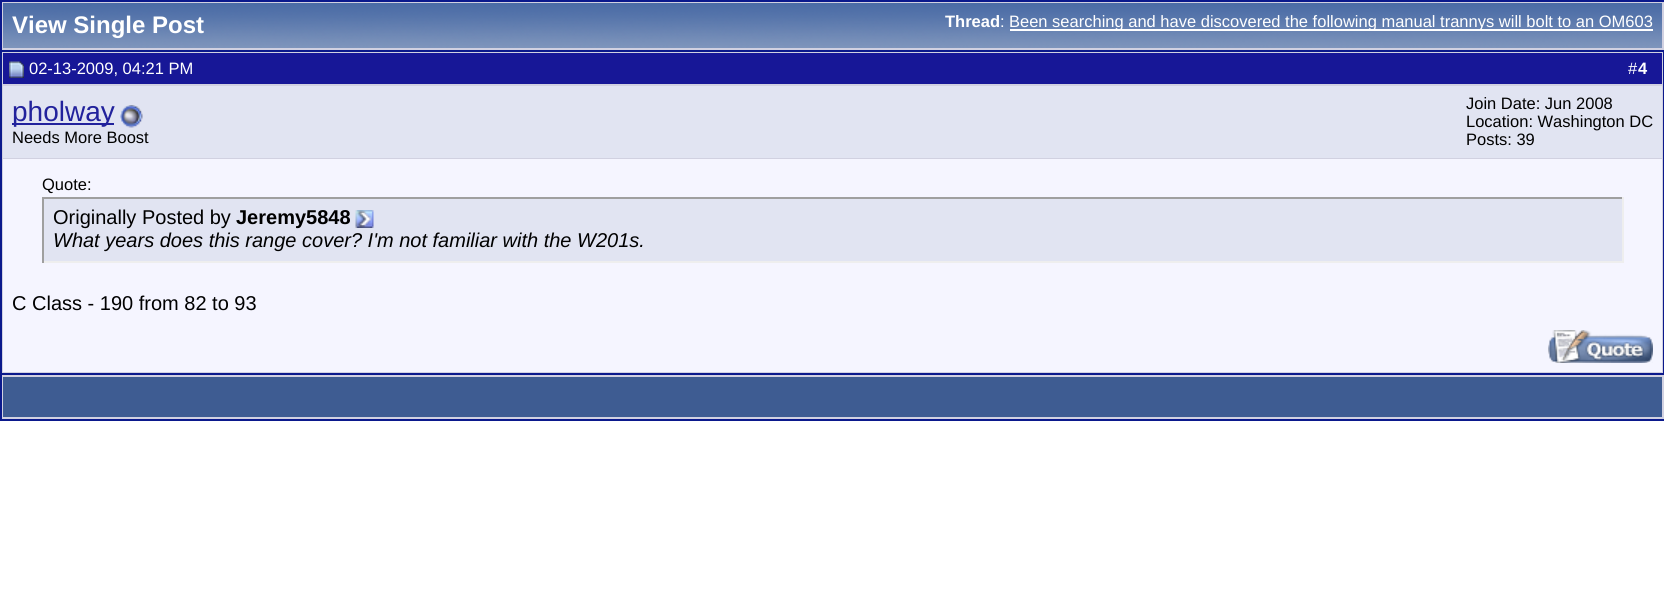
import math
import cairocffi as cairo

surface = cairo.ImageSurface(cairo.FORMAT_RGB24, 1664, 604)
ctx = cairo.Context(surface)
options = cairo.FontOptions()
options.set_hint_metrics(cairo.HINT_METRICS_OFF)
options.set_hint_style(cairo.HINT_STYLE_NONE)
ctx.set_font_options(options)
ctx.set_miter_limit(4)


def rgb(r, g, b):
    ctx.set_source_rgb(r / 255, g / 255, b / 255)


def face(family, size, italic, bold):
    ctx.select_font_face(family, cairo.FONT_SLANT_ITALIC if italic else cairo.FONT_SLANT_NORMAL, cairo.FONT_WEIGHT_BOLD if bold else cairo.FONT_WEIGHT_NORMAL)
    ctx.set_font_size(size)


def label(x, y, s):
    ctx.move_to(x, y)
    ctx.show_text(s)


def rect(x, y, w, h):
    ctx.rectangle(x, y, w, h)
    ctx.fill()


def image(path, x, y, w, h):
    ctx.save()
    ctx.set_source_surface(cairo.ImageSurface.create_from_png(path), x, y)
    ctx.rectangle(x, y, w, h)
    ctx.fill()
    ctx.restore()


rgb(255, 255, 255)
ctx.paint()
rgb(209, 209, 225)
rect(2, 2, 1662, 48)
rgb(11, 25, 140)
rect(0, 0, 1664, 2)
rect(0, 0, 2, 50)
image('image0.png', 3, 3, 1659, 45)
face('Liberation Sans', 24, 0, 1)
rgb(255, 255, 255)
label(12, 33, 'View Single Post')
face('Liberation Sans', 16.5, 0, 1)
label(945, 27, 'Thread')
face('Liberation Sans', 16.5, 0, 0)
label(1000, 27, ':')
rect(1010, 29, 643, 2)
label(1009, 27, 'Been searching and have discovered the following manual trannys will bolt to an OM603')
rgb(209, 209, 225)
ctx.rectangle(1, 51, 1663, 323)
ctx.fill_preserve()
rgb(11, 25, 140)
ctx.stroke()
rgb(23, 23, 151)
rect(3, 53, 1659, 31)
image('image1.png', 9, 61, 15, 17)
rgb(255, 255, 255)
label(29, 74, '02-13-2009, 04:21 PM')
label(1628, 74, '#')
face('Liberation Sans', 16.5, 0, 1)
label(1638, 74, '4')
rgb(225, 228, 242)
rect(3, 86, 1659, 72)
rgb(34, 34, 156)
rect(12, 123, 102, 2)
face('Liberation Sans', 28, 0, 0)
label(12, 121, 'pholway')
image('image2.png', 120, 105, 23, 23)
face('Liberation Sans', 16.5, 0, 0)
rgb(0, 0, 0)
label(12, 143, 'Needs More Boost')
label(1466, 109, 'Join Date: Jun 2008')
label(1466, 127, 'Location: Washington DC')
label(1466, 145, 'Posts: 39')
rgb(245, 245, 255)
rect(3, 159, 1659, 213)
rgb(0, 0, 0)
label(42, 190, 'Quote:')
rgb(225, 228, 242)
rect(44, 199, 1578, 62)
rgb(159, 159, 159)
rect(42, 197, 1581, 2)
rgb(238, 238, 238)
rect(1622, 197, 2, 66)
rect(42, 261, 1581, 2)
rgb(159, 159, 159)
rect(42, 197, 2, 66)
face('Liberation Sans', 20, 0, 0)
rgb(0, 0, 0)
label(53, 224, 'Originally Posted by')
face('Liberation Sans', 20, 0, 1)
label(236, 224, 'Jeremy5848')
image('image3.png', 355, 210, 19, 18)
face('Liberation Sans', 20, 1, 0)
label(53, 247, 'What years does this range cover? I\'m not familiar with the W201s.')
face('Liberation Sans', 20, 0, 0)
label(12, 310, 'C Class - 190 from 82 to 93')
image('image4.png', 1548, 330, 105, 33)
rgb(209, 209, 225)
rect(2, 375, 1662, 44)
rgb(11, 25, 140)
rect(0, 419, 1664, 2)
rect(0, 375, 2, 45)
rgb(62, 92, 146)
rect(3, 377, 1659, 40)
surface.write_to_png('render.png')
